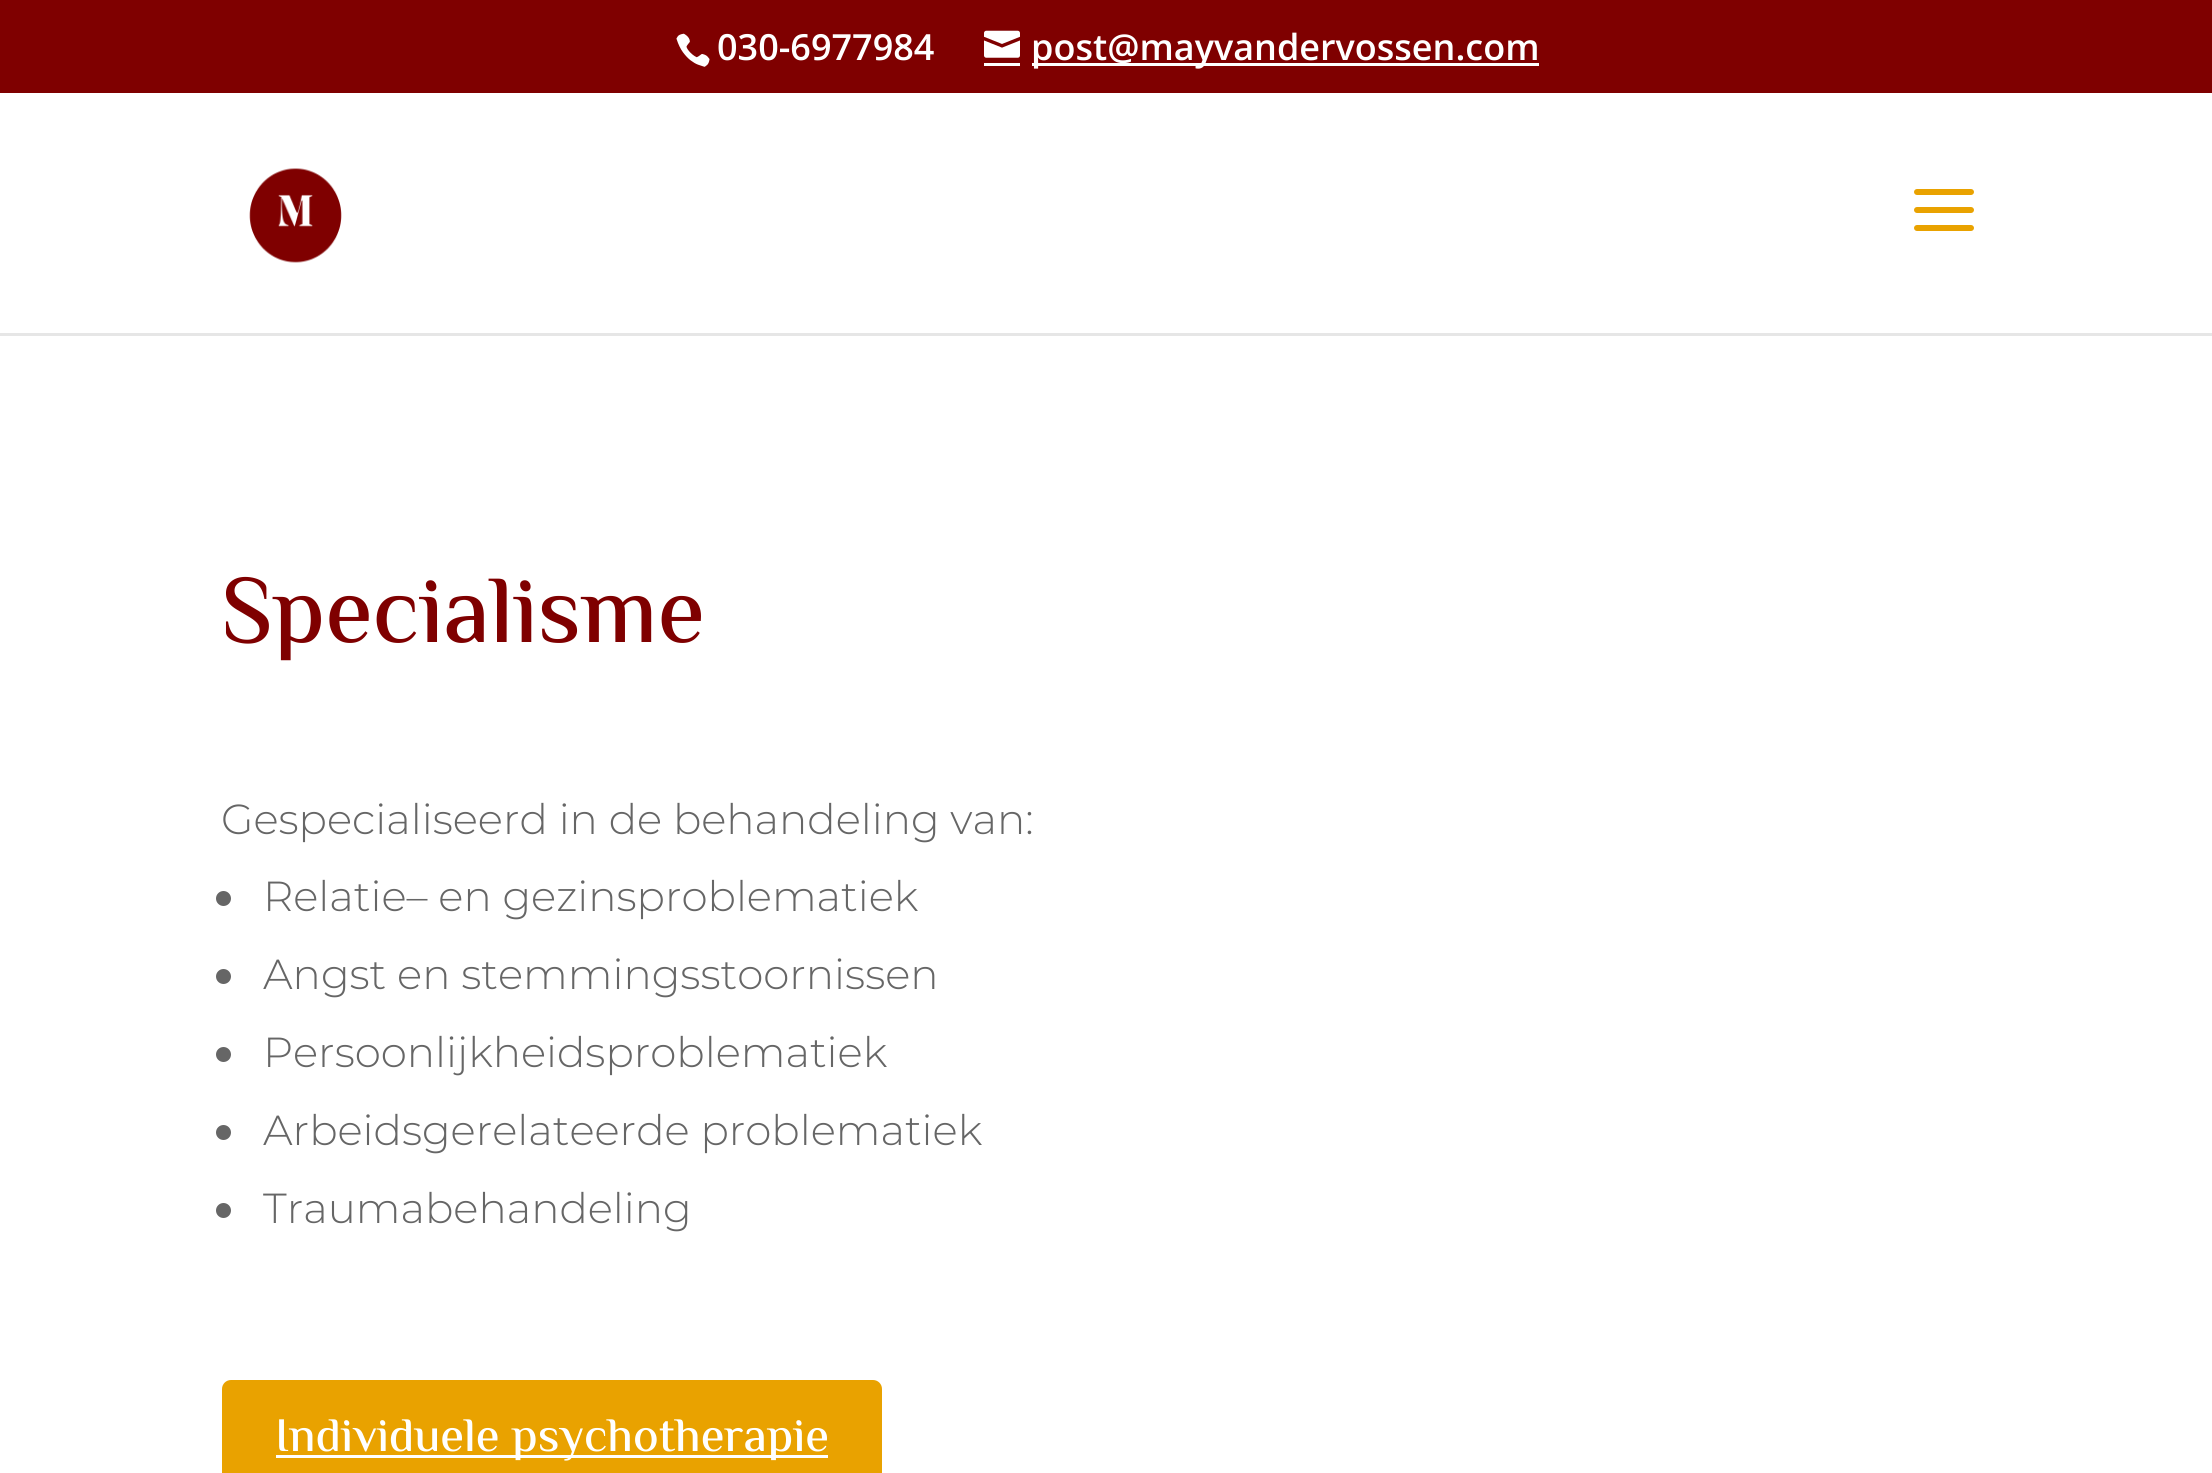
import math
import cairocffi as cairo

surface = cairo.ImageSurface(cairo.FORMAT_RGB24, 2212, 1473)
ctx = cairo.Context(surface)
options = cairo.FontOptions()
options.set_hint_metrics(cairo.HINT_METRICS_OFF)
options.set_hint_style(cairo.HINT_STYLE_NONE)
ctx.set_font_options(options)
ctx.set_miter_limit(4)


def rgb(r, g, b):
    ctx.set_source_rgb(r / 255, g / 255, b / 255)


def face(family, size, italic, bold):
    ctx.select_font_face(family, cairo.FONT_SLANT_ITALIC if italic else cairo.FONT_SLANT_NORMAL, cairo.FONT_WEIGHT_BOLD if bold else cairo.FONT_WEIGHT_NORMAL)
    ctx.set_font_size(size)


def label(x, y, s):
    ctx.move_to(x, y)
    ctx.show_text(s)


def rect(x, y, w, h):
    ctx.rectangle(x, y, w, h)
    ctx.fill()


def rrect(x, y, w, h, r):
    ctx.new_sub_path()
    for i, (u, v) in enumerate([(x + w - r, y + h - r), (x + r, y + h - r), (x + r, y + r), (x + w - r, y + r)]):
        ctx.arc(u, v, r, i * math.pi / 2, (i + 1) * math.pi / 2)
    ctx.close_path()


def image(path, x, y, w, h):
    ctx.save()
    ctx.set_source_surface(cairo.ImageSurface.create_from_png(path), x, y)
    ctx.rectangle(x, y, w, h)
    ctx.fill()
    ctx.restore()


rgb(255, 255, 255)
ctx.paint()
rgb(127, 0, 0)
rect(0, 0, 2212, 93)
image('image0.png', 676, 33, 34, 34)
face('Open Sans SemiBold', 36, 0, 0)
rgb(255, 255, 255)
label(717, 60, '030-6977984')
image('image1.png', 984, 30, 36, 28)
rect(1032, 63, 507, 3)
label(1031, 60, 'post@mayvandervossen.com')
rect(984, 63, 36, 3)
rgb(230, 230, 230)
rect(0, 333, 2212, 3)
image('image2.png', 249, 168, 93, 95)
image('image3.png', 1914, 189, 60, 42)
face('El Messiri Medium', 96, 0, 0)
rgb(127, 0, 0)
label(221, 642, 'Specialisme')
face('Montserrat Light', 42, 0, 0)
rgb(102, 102, 102)
label(221, 834, 'Gespecialiseerd in de behandeling van:')
ctx.new_path()
ctx.arc(223.5, 898.5, 7.5, 0, 2 * math.pi)
ctx.fill()
label(263, 911, 'Relatie– en gezinsproblematiek')
ctx.new_path()
ctx.arc(223.5, 976.5, 7.5, 0, 2 * math.pi)
ctx.fill()
label(263, 989, 'Angst en stemmingsstoornissen')
ctx.new_path()
ctx.arc(223.5, 1054.5, 7.5, 0, 2 * math.pi)
ctx.fill()
label(263, 1067, 'Persoonlijkheidsproblematiek')
ctx.new_path()
ctx.arc(223.5, 1132.5, 7.5, 0, 2 * math.pi)
ctx.fill()
label(263, 1145, 'Arbeidsgerelateerde problematiek')
ctx.new_path()
ctx.arc(223.5, 1210.5, 7.5, 0, 2 * math.pi)
ctx.fill()
label(263, 1223, 'Traumabehandeling')
rgb(233, 162, 0)
rrect(225, 1383, 654, 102, 6)
ctx.fill_preserve()
ctx.set_line_width(6)
ctx.stroke()
rgb(255, 255, 255)
rect(276, 1455, 552, 3)
face('El Messiri Medium', 48, 0, 0)
label(275, 1451, 'Individuele psychotherapie')
surface.write_to_png('render.png')
